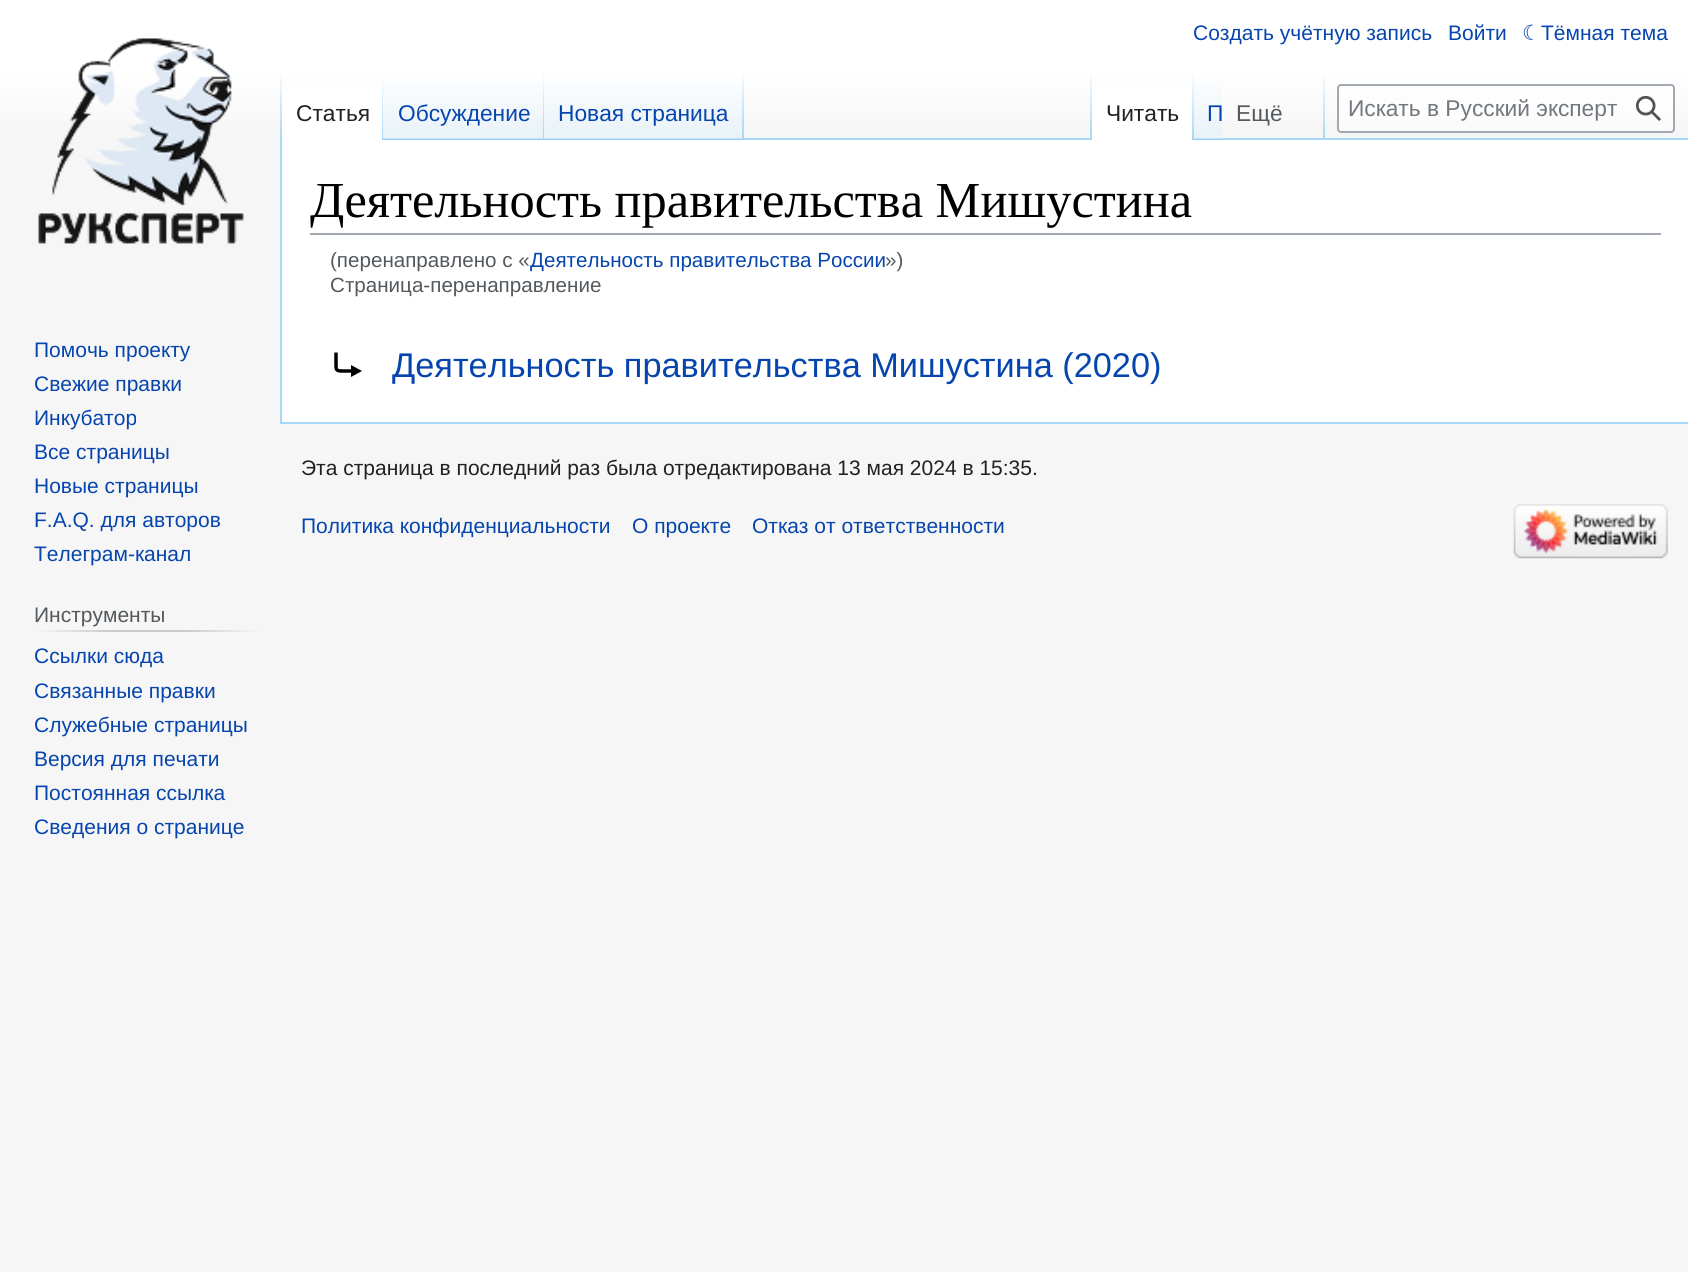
import math
import cairocffi as cairo

surface = cairo.ImageSurface(cairo.FORMAT_RGB24, 1688, 1272)
ctx = cairo.Context(surface)
options = cairo.FontOptions()
options.set_hint_metrics(cairo.HINT_METRICS_OFF)
options.set_hint_style(cairo.HINT_STYLE_NONE)
ctx.set_font_options(options)
ctx.set_miter_limit(4)


def rgb(r, g, b):
    ctx.set_source_rgb(r / 255, g / 255, b / 255)


def face(family, size, italic, bold):
    ctx.select_font_face(family, cairo.FONT_SLANT_ITALIC if italic else cairo.FONT_SLANT_NORMAL, cairo.FONT_WEIGHT_BOLD if bold else cairo.FONT_WEIGHT_NORMAL)
    ctx.set_font_size(size)


def label(x, y, s):
    ctx.move_to(x, y)
    ctx.show_text(s)


def rect(x, y, w, h):
    ctx.rectangle(x, y, w, h)
    ctx.fill()


def rrect(x, y, w, h, r):
    ctx.new_sub_path()
    for i, (u, v) in enumerate([(x + w - r, y + h - r), (x + r, y + h - r), (x + r, y + r), (x + w - r, y + r)]):
        ctx.arc(u, v, r, i * math.pi / 2, (i + 1) * math.pi / 2)
    ctx.close_path()


def image(path, x, y, w, h):
    ctx.save()
    ctx.set_source_surface(cairo.ImageSurface.create_from_png(path), x, y)
    ctx.rectangle(x, y, w, h)
    ctx.fill()
    ctx.restore()


rgb(246, 246, 246)
ctx.paint()
gradient = cairo.LinearGradient(844, 0, 844, 140)
gradient.add_color_stop_rgba(0.5, 1, 1, 1, 1)
gradient.add_color_stop_rgba(1, 0.965, 0.965, 0.965, 1)
ctx.set_source(gradient)
rect(0, 0, 1688, 121)
face('Liberation Sans', 21, 0, 0)
rgb(6, 69, 173)
label(1193, 40, 'Создать учётную запись')
label(1448, 40, 'Войти')
face('DejaVu Sans', 21, 0, 0)
label(1522, 40, '☾')
face('Liberation Sans', 21, 0, 0)
label(1541, 40, 'Тёмная тема')
rgb(167, 215, 249)
rect(280, 422, 1408, 2)
rect(280, 138, 2, 286)
gradient = cairo.LinearGradient(281, 70, 281, 140)
gradient.add_color_stop_rgba(0, 0.655, 0.843, 0.976, 0)
gradient.add_color_stop_rgba(1, 0.655, 0.843, 0.976, 1)
ctx.set_source(gradient)
rect(280, 70, 2, 70)
rgb(255, 255, 255)
rect(282, 89, 100, 51)
gradient = cairo.LinearGradient(382, 70, 382, 140)
gradient.add_color_stop_rgba(0, 1, 1, 1, 1)
gradient.add_color_stop_rgba(1, 0.655, 0.843, 0.976, 1)
ctx.set_source(gradient)
rect(382, 70, 1, 70)
face('Liberation Sans', 22.75, 0, 0)
rgb(32, 33, 34)
label(296, 121, 'Статья')
gradient = cairo.LinearGradient(464, 140, 464, 70)
gradient.add_color_stop_rgba(0, 0.467, 0.757, 0.965, 1)
gradient.add_color_stop_rgba(0.03, 0.91, 0.949, 0.973, 1)
gradient.add_color_stop_rgba(1, 1, 1, 1, 1)
ctx.set_source(gradient)
rect(383, 80, 161, 60)
gradient = cairo.LinearGradient(543, 70, 543, 140)
gradient.add_color_stop_rgba(0, 0.655, 0.843, 0.976, 0)
gradient.add_color_stop_rgba(1, 0.655, 0.843, 0.976, 1)
ctx.set_source(gradient)
rect(543, 70, 1, 70)
rgb(6, 69, 173)
label(398, 121, 'Обсуждение')
gradient = cairo.LinearGradient(644, 140, 644, 70)
gradient.add_color_stop_rgba(0, 0.467, 0.757, 0.965, 1)
gradient.add_color_stop_rgba(0.03, 0.91, 0.949, 0.973, 1)
gradient.add_color_stop_rgba(1, 1, 1, 1, 1)
ctx.set_source(gradient)
rect(544, 80, 200, 60)
gradient = cairo.LinearGradient(743, 70, 743, 140)
gradient.add_color_stop_rgba(0, 0.655, 0.843, 0.976, 0)
gradient.add_color_stop_rgba(1, 0.655, 0.843, 0.976, 1)
ctx.set_source(gradient)
rect(742, 70, 2, 70)
rgb(6, 69, 173)
label(558, 121, 'Новая страница')
rgb(167, 215, 249)
rect(744, 138, 944, 2)
gradient = cairo.LinearGradient(1091, 70, 1091, 140)
gradient.add_color_stop_rgba(0, 0.655, 0.843, 0.976, 0)
gradient.add_color_stop_rgba(1, 0.655, 0.843, 0.976, 1)
ctx.set_source(gradient)
rect(1090, 70, 2, 70)
rgb(255, 255, 255)
rect(1092, 89, 100, 51)
gradient = cairo.LinearGradient(1193, 70, 1193, 140)
gradient.add_color_stop_rgba(0, 1, 1, 1, 1)
gradient.add_color_stop_rgba(1, 0.655, 0.843, 0.976, 1)
ctx.set_source(gradient)
rect(1192, 70, 2, 70)
rgb(32, 33, 34)
label(1106, 121, 'Читать')
gradient = cairo.LinearGradient(1208, 140, 1208, 70)
gradient.add_color_stop_rgba(0, 0.467, 0.757, 0.965, 1)
gradient.add_color_stop_rgba(0.03, 0.91, 0.949, 0.973, 1)
gradient.add_color_stop_rgba(1, 1, 1, 1, 1)
ctx.set_source(gradient)
rect(1194, 80, 28, 60)
rgb(6, 69, 173)
label(1207, 121, 'П')
gradient = cairo.LinearGradient(1324, 70, 1324, 140)
gradient.add_color_stop_rgba(0, 0.655, 0.843, 0.976, 0)
gradient.add_color_stop_rgba(1, 0.655, 0.843, 0.976, 1)
ctx.set_source(gradient)
rect(1323, 70, 2, 70)
rgb(84, 89, 93)
label(1236, 121, 'Ещё')
ctx.set_source_rgba(1, 1, 1, 0.5)
rrect(1338, 85, 336, 47, 3)
ctx.fill_preserve()
rgb(162, 169, 177)
ctx.stroke()
rgb(114, 119, 125)
label(1348, 116, 'Искать в Русский эксперт')
image('image0.png', 1635, 95, 26, 26)
image('image1.png', 38, 38, 206, 206)
face('Liberation Sans', 21, 0, 0)
rgb(6, 69, 173)
label(34, 357, 'Помочь проекту')
label(34, 391, 'Свежие правки')
label(34, 425, 'Инкубатор')
label(34, 459, 'Все страницы')
label(34, 493, 'Новые страницы')
label(34, 527, 'F.A.Q. для авторов')
label(34, 561, 'Телеграм-канал')
gradient = cairo.LinearGradient(33, 631, 263, 631)
gradient.add_color_stop_rgba(0, 0.965, 0.965, 0.965, 1)
gradient.add_color_stop_rgba(0.33, 0.784, 0.8, 0.82, 1)
gradient.add_color_stop_rgba(0.66, 0.784, 0.8, 0.82, 1)
gradient.add_color_stop_rgba(1, 0.965, 0.965, 0.965, 1)
ctx.set_source(gradient)
rect(33, 630, 230, 2)
rgb(84, 89, 93)
label(34, 622, 'Инструменты')
rgb(6, 69, 173)
label(34, 663, 'Ссылки сюда')
label(34, 698, 'Связанные правки')
label(34, 732, 'Служебные страницы')
label(34, 766, 'Версия для печати')
label(34, 800, 'Постоянная ссылка')
label(34, 834, 'Сведения о странице')
rgb(255, 255, 255)
rect(282, 140, 1406, 282)
rgb(162, 169, 177)
rect(310, 233, 1351, 2)
face('Liberation Serif', 50.4, 0, 0)
rgb(0, 0, 0)
label(310, 217, 'Деятельность правительства Мишустина')
face('Liberation Sans', 20.6, 0, 0)
rgb(84, 89, 93)
label(330, 267, '(перенаправлено с «')
rgb(6, 69, 173)
label(530, 267, 'Деятельность правительства России')
rgb(84, 89, 93)
label(885, 267, '»)')
label(330, 292, 'Страница-перенаправление')
face('Liberation Sans', 34.3, 0, 0)
rgb(6, 69, 173)
label(392, 377, 'Деятельность правительства Мишустина (2020)')
ctx.new_path()
ctx.move_to(336, 352.5)
ctx.line_to(336, 362.5)
ctx.curve_to(336, 370, 335.5, 371, 343, 371)
ctx.line_to(355, 371)
rgb(0, 0, 0)
ctx.set_line_width(3.5)
ctx.stroke()
ctx.new_path()
ctx.move_to(351, 365)
ctx.line_to(351, 377)
ctx.line_to(362, 371)
ctx.close_path()
ctx.fill()
face('Liberation Sans', 21, 0, 0)
rgb(32, 33, 34)
label(301, 475, 'Эта страница в последний раз была отредактирована 13 мая 2024 в 15:35.')
rgb(6, 69, 173)
label(301, 533, 'Политика конфиденциальности')
label(632, 533, 'О проекте')
label(752, 533, 'Отказ от ответственности')
image('image2.png', 1513, 504, 155, 55)
surface.write_to_png('render.png')
